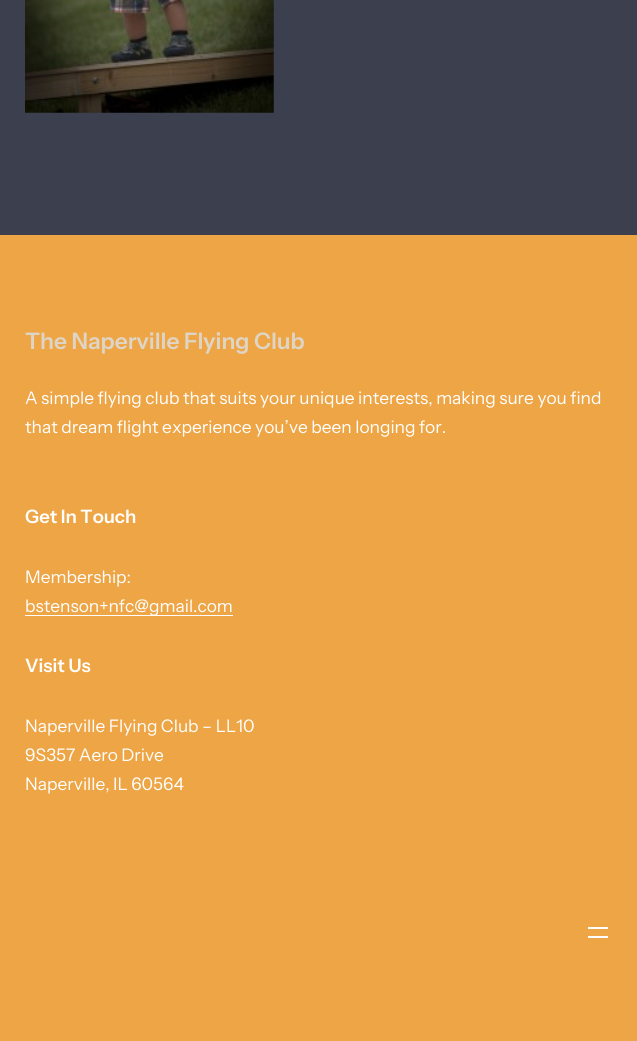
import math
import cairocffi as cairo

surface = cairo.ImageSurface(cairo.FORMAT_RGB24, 637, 1041)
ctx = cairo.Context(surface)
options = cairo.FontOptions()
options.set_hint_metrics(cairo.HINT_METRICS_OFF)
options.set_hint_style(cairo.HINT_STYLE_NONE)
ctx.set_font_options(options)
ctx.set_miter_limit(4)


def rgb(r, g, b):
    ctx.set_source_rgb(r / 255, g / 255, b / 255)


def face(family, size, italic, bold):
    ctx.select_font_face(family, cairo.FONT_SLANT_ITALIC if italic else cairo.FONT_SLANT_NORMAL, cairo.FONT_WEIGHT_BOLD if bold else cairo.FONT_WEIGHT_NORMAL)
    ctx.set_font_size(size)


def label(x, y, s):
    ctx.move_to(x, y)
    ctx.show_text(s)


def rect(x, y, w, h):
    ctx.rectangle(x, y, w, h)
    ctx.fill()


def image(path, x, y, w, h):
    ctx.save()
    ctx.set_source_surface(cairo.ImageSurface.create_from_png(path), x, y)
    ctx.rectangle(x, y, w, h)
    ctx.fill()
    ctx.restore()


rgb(60, 63, 77)
ctx.paint()
image('image0.png', 25, 0, 249, 113)
rgb(238, 165, 69)
rect(0, 235, 637, 806)
face('Instrument Sans SemiBold', 22.75, 0, 0)
rgb(222, 213, 198)
label(25, 349, 'The Naperville Flying Club')
face('Instrument Sans', 17.35, 0, 0)
rgb(255, 255, 255)
label(25, 404, 'A simple flying club that suits your unique interests, making sure you find')
label(25, 433, 'that dream flight experience you’ve been longing for.')
face('Instrument Sans SemiBold', 18.5, 0, 0)
label(25, 523, 'Get In Touch')
face('Instrument Sans', 17.35, 0, 0)
label(25, 583, 'Membership:')
rect(25, 615, 208, 1)
label(25, 612, 'bstenson+nfc@gmail.com')
face('Instrument Sans SemiBold', 18.5, 0, 0)
label(25, 672, 'Visit Us')
face('Instrument Sans', 17.35, 0, 0)
label(25, 732, 'Naperville Flying Club – LL10')
label(25, 761, '9S357 Aero Drive')
label(25, 790, 'Naperville, IL 60564')
rect(588, 927, 20, 2)
rect(588, 936, 20, 2)
surface.write_to_png('render.png')
